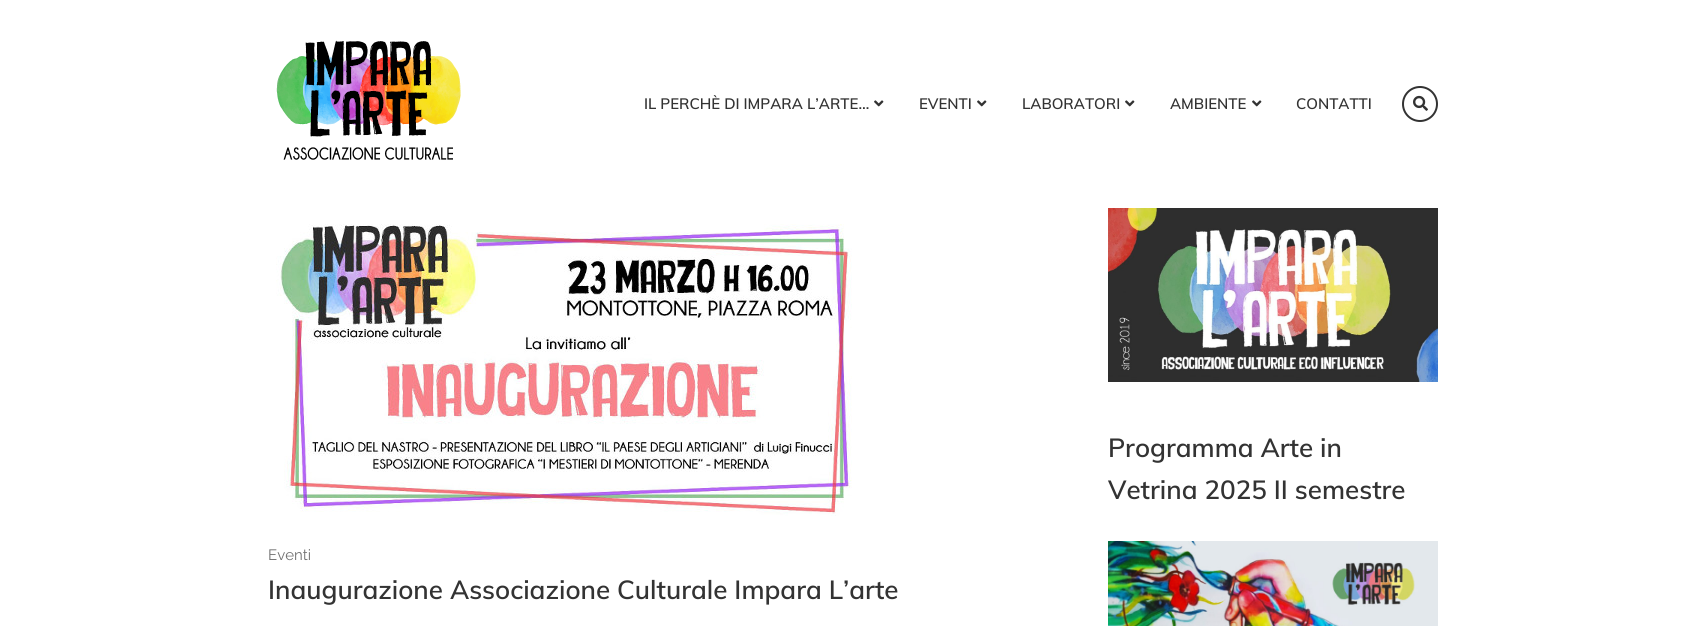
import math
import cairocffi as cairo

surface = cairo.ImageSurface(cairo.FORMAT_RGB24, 1706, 626)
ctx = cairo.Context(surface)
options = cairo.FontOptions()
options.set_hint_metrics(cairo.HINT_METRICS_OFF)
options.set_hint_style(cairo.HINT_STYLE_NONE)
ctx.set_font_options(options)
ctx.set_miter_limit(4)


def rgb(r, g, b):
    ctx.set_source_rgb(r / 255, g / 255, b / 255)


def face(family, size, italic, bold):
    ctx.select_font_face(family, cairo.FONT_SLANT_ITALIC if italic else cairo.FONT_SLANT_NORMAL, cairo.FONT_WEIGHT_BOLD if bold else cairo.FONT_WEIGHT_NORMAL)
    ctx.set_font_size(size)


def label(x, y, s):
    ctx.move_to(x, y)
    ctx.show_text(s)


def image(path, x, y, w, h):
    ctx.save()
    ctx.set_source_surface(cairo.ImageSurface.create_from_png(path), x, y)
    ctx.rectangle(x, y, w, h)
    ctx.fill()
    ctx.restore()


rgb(255, 255, 255)
ctx.paint()
image('image0.png', 276, 40, 185, 120)
face('Muli SemiBold', 15, 0, 0)
rgb(51, 51, 51)
label(644, 109, 'IL PERCHÈ DI IMPARA L’ARTE…')
image('image1.png', 874, 100, 10, 7)
label(919, 109, 'EVENTI')
image('image1.png', 977, 100, 10, 7)
label(1022, 109, 'LABORATORI')
image('image1.png', 1125, 100, 10, 7)
label(1170, 109, 'AMBIENTE')
image('image1.png', 1252, 100, 10, 7)
label(1296, 109, 'CONTATTI')
ctx.new_path()
ctx.arc(1420, 104, 17, 0, 2 * math.pi)
ctx.stroke()
image('image2.png', 1413, 95, 15, 16)
image('image3.png', 1108, 208, 330, 174)
face('Muli SemiBold', 26, 0, 0)
label(1108, 457, 'Programma Arte in')
label(1108, 499, 'Vetrina 2025 II semestre')
image('image4.png', 1108, 541, 330, 85)
image('image5.png', 276, 224, 576, 292)
face('Raleway', 15, 0, 0)
rgb(112, 112, 112)
label(268, 560, 'Eventi')
face('Muli SemiBold', 26, 0, 0)
rgb(51, 51, 51)
label(268, 599, 'Inaugurazione Associazione Culturale Impara L’arte')
surface.write_to_png('render.png')
